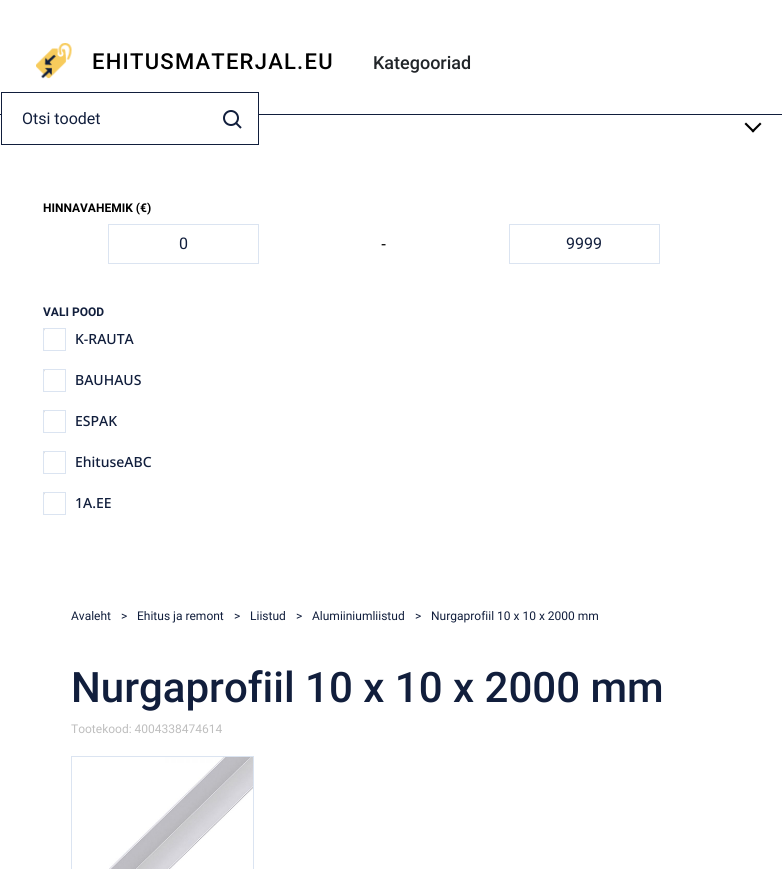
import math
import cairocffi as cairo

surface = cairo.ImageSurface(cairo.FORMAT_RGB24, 782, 869)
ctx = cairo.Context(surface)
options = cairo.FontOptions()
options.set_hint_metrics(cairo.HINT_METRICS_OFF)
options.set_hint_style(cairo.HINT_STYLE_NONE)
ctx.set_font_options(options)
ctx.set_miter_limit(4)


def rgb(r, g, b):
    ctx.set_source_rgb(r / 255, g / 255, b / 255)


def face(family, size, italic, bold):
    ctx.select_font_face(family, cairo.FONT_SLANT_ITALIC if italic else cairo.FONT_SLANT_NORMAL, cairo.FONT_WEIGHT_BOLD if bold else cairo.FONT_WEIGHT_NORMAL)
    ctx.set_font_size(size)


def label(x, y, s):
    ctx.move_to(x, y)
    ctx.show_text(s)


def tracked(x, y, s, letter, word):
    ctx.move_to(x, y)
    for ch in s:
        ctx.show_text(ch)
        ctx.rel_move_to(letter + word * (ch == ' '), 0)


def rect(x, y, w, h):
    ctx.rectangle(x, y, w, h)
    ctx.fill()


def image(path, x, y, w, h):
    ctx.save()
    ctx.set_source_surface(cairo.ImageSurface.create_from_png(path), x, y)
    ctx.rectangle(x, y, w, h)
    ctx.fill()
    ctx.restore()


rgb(255, 255, 255)
ctx.paint()
rgb(17, 30, 60)
rect(0, 114, 782, 1)
image('image0.png', 36, 43, 36, 36)
face('Roboto Medium', 22, 0, 0)
rgb(0, 0, 0)
tracked(92, 69, 'EHITUSMATERJAL.EU', 1.25, 0)
face('Roboto Medium', 18, 0, 0)
rgb(33, 37, 41)
label(373, 69, 'Kategooriad')
rgb(255, 255, 255)
rect(2, 114, 256, 1)
ctx.rectangle(1.5, 92.5, 257, 52)
rgb(17, 30, 60)
ctx.set_line_width(1)
ctx.stroke()
face('Roboto', 16, 0, 0)
label(22, 124, 'Otsi toodet')
image('image1.png', 223, 110, 19, 19)
rgb(0, 0, 0)
ctx.new_path()
ctx.move_to(760, 122.5)
ctx.line_to(761.5, 124)
ctx.line_to(753, 132.5)
ctx.line_to(751.5, 131)
ctx.close_path()
ctx.fill()
ctx.new_path()
ctx.move_to(746, 122.5)
ctx.line_to(754.5, 131)
ctx.line_to(753, 132.5)
ctx.line_to(744.5, 124)
ctx.close_path()
ctx.fill()
face('Roboto', 12, 0, 1)
label(43, 212, 'HINNAVAHEMIK (€)')
ctx.rectangle(108.5, 224.5, 150, 39)
rgb(219, 228, 241)
ctx.stroke()
face('Roboto', 16, 0, 0)
rgb(17, 30, 60)
label(179, 249, '0')
face('Noto Sans', 16, 0, 0)
rgb(0, 0, 0)
label(381, 249, '-')
ctx.rectangle(509.5, 224.5, 150, 39)
rgb(219, 228, 241)
ctx.stroke()
face('Roboto', 16, 0, 0)
rgb(17, 30, 60)
label(566, 249, '9999')
face('Roboto', 12, 0, 1)
label(43, 316, 'VALI POOD')
ctx.save()
ctx.rectangle(44, 329, 21, 21)
ctx.clip()
rgb(191, 191, 191)
ctx.set_fill_rule(cairo.FILL_RULE_EVEN_ODD)
ctx.new_path()
ctx.move_to(-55, 230)
ctx.line_to(164, 230)
ctx.line_to(164, 449)
ctx.line_to(-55, 449)
ctx.close_path()
ctx.move_to(45, 329)
ctx.curve_to(48, 329, 66, 329, 67, 329)
ctx.line_to(67, 340)
ctx.curve_to(67, 355, 70, 352, 56, 352)
ctx.curve_to(43, 352, 44, 355, 44, 344)
ctx.curve_to(44, 342, 43, 329, 45, 329)
ctx.close_path()
ctx.fill()
ctx.restore()
ctx.rectangle(43.5, 328.5, 22, 22)
rgb(219, 228, 241)
ctx.stroke()
face('Noto Sans Medium', 14, 0, 0)
rgb(17, 30, 60)
label(75, 344, 'K-RAUTA')
ctx.save()
ctx.rectangle(44, 370, 21, 21)
ctx.clip()
rgb(191, 191, 191)
ctx.set_fill_rule(cairo.FILL_RULE_EVEN_ODD)
ctx.new_path()
ctx.move_to(-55, 271)
ctx.line_to(164, 271)
ctx.line_to(164, 490)
ctx.line_to(-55, 490)
ctx.close_path()
ctx.move_to(45, 370)
ctx.curve_to(48, 370, 66, 370, 67, 370)
ctx.line_to(67, 382)
ctx.curve_to(67, 396, 70, 393, 56, 393)
ctx.curve_to(43, 393, 44, 396, 44, 385)
ctx.curve_to(44, 383, 43, 370, 45, 370)
ctx.close_path()
ctx.fill()
ctx.restore()
ctx.rectangle(43.5, 369.5, 22, 22)
rgb(219, 228, 241)
ctx.stroke()
rgb(17, 30, 60)
label(75, 385, 'BAUHAUS')
ctx.save()
ctx.rectangle(44, 411, 21, 21)
ctx.clip()
rgb(191, 191, 191)
ctx.set_fill_rule(cairo.FILL_RULE_EVEN_ODD)
ctx.new_path()
ctx.move_to(-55, 312)
ctx.line_to(164, 312)
ctx.line_to(164, 531)
ctx.line_to(-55, 531)
ctx.close_path()
ctx.move_to(45, 411)
ctx.curve_to(48, 411, 66, 411, 67, 411)
ctx.line_to(67, 422)
ctx.curve_to(67, 437, 70, 434, 56, 434)
ctx.curve_to(43, 434, 44, 437, 44, 426)
ctx.curve_to(44, 424, 43, 411, 45, 411)
ctx.close_path()
ctx.fill()
ctx.restore()
ctx.rectangle(43.5, 410.5, 22, 22)
rgb(219, 228, 241)
ctx.stroke()
rgb(17, 30, 60)
label(75, 426, 'ESPAK')
ctx.save()
ctx.rectangle(44, 452, 21, 21)
ctx.clip()
rgb(191, 191, 191)
ctx.set_fill_rule(cairo.FILL_RULE_EVEN_ODD)
ctx.new_path()
ctx.move_to(-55, 353)
ctx.line_to(164, 353)
ctx.line_to(164, 572)
ctx.line_to(-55, 572)
ctx.close_path()
ctx.move_to(45, 452)
ctx.curve_to(48, 452, 66, 452, 67, 452)
ctx.line_to(67, 464)
ctx.curve_to(67, 478, 70, 475, 56, 475)
ctx.curve_to(43, 475, 44, 478, 44, 467)
ctx.curve_to(44, 465, 43, 452, 45, 452)
ctx.close_path()
ctx.fill()
ctx.restore()
ctx.rectangle(43.5, 451.5, 22, 22)
rgb(219, 228, 241)
ctx.stroke()
rgb(17, 30, 60)
label(75, 467, 'EhituseABC')
ctx.save()
ctx.rectangle(44, 493, 21, 21)
ctx.clip()
rgb(191, 191, 191)
ctx.set_fill_rule(cairo.FILL_RULE_EVEN_ODD)
ctx.new_path()
ctx.move_to(-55, 394)
ctx.line_to(164, 394)
ctx.line_to(164, 613)
ctx.line_to(-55, 613)
ctx.close_path()
ctx.move_to(45, 493)
ctx.curve_to(48, 493, 66, 493, 67, 493)
ctx.line_to(67, 504)
ctx.curve_to(67, 519, 70, 516, 56, 516)
ctx.curve_to(43, 516, 44, 519, 44, 508)
ctx.curve_to(44, 506, 43, 493, 45, 493)
ctx.close_path()
ctx.fill()
ctx.restore()
ctx.rectangle(43.5, 492.5, 22, 22)
rgb(219, 228, 241)
ctx.stroke()
rgb(17, 30, 60)
label(75, 508, '1A.EE')
face('Roboto', 12, 0, 0)
label(71, 620, 'Avaleht')
label(121, 620, '>')
label(137, 620, 'Ehitus ja remont')
label(234, 620, '>')
label(250, 620, 'Liistud')
label(296, 620, '>')
label(312, 620, 'Alumiiniumliistud')
label(415, 620, '>')
label(431, 620, 'Nurgaprofiil 10 x 10 x 2000 mm')
face('Roboto Medium', 42, 0, 0)
label(71, 702, 'Nurgaprofiil 10 x 10 x 2000 mm')
face('Roboto', 12, 0, 0)
rgb(190, 190, 190)
label(71, 733, 'Tootekood: 4004338474614')
ctx.rectangle(71.5, 756.5, 182, 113)
rgb(219, 228, 241)
ctx.stroke()
image('image2.png', 109, 757, 144, 112)
surface.write_to_png('render.png')
